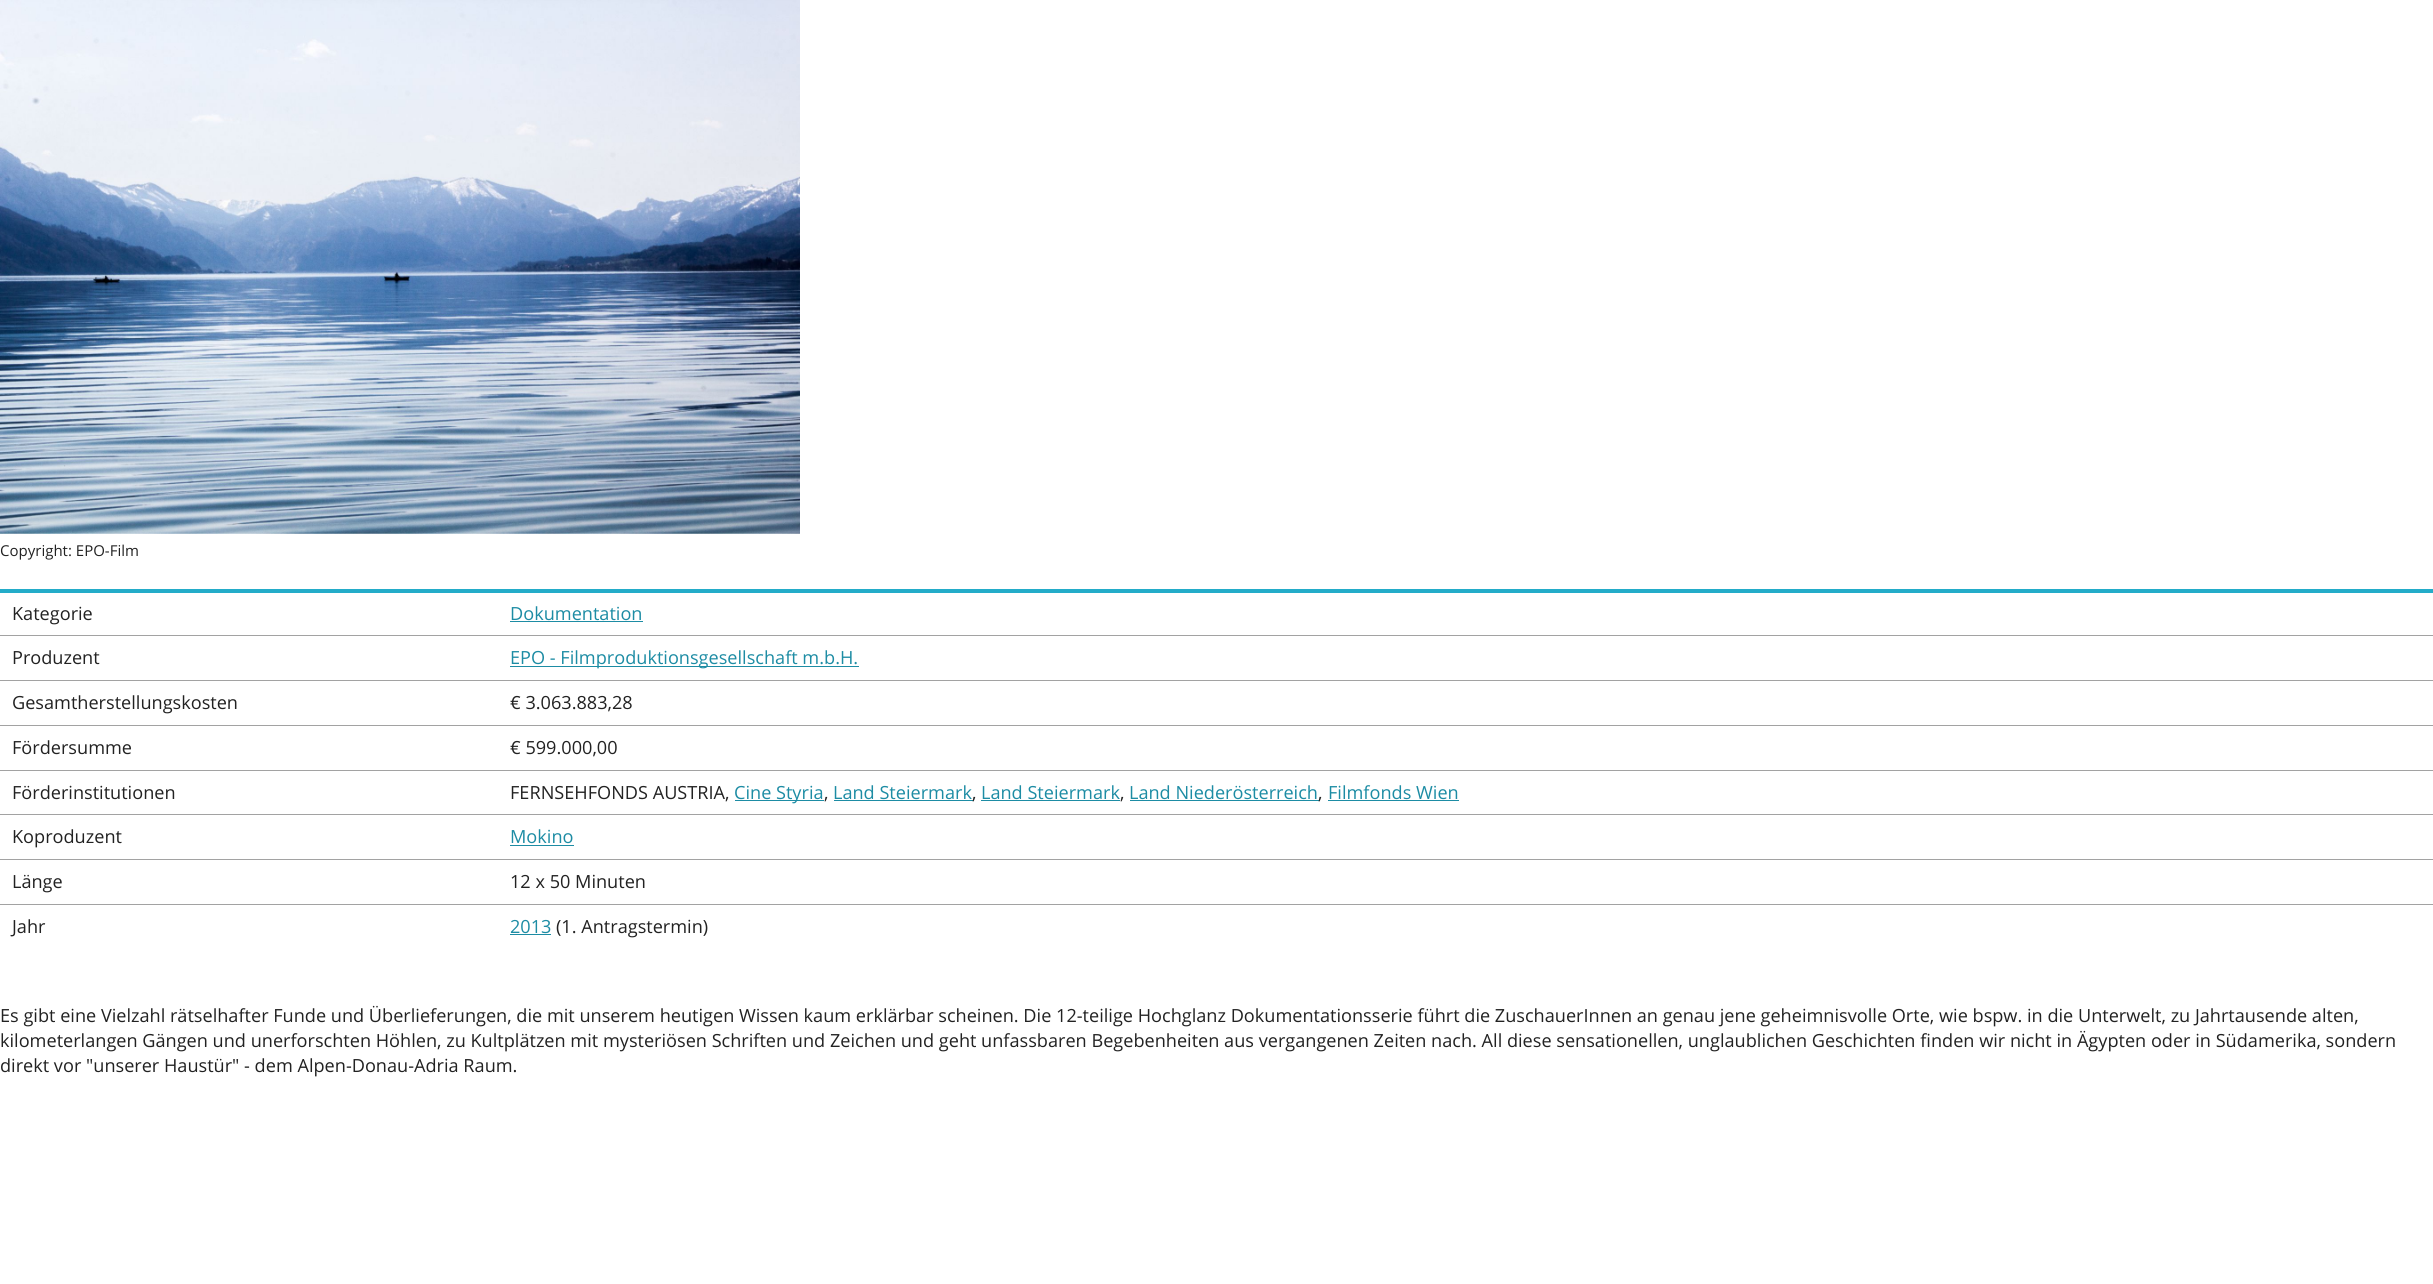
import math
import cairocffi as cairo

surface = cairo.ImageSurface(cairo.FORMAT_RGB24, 2433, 1284)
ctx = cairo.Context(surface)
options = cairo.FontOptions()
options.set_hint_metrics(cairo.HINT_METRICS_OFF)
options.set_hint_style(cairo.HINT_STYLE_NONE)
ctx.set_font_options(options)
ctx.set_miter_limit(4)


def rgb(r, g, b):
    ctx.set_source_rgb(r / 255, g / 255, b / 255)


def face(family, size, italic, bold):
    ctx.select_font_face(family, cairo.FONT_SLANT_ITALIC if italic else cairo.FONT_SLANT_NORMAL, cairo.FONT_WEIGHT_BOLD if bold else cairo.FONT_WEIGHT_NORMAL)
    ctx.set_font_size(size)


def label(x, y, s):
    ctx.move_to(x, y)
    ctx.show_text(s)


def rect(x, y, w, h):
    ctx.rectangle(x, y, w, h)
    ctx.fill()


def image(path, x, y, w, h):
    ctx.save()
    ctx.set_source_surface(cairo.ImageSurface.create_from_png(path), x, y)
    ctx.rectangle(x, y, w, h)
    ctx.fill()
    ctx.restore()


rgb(255, 255, 255)
ctx.paint()
image('image0.png', 0, 0, 800, 534)
face('Open Sans', 15, 0, 0)
rgb(34, 34, 34)
label(0, 556, 'Copyright: EPO-Film')
rgb(35, 172, 201)
rect(0, 589, 2433, 4)
face('Open Sans', 18.12, 0, 0)
rgb(34, 34, 34)
label(12, 620, 'Kategorie')
rgb(29, 140, 164)
label(510, 620, 'Dokumentation')
rect(510, 621, 133, 1)
rgb(34, 34, 34)
label(12, 664, 'Produzent')
rgb(162, 162, 162)
rect(0, 635, 2433, 1)
rgb(29, 140, 164)
rect(510, 666, 349, 1)
label(510, 664, 'EPO - Filmproduktionsgesellschaft m.b.H.')
rgb(34, 34, 34)
label(12, 709, 'Gesamtherstellungskosten')
rgb(162, 162, 162)
rect(0, 680, 2433, 1)
rgb(34, 34, 34)
label(510, 709, '€ 3.063.883,28')
label(12, 754, 'Fördersumme')
rgb(162, 162, 162)
rect(0, 725, 2433, 1)
rgb(34, 34, 34)
label(510, 754, '€ 599.000,00')
label(12, 799, 'Förderinstitutionen')
rgb(162, 162, 162)
rect(0, 770, 2433, 1)
rgb(34, 34, 34)
label(510, 799, 'FERNSEHFONDS AUSTRIA,')
rgb(29, 140, 164)
rect(735, 800, 89, 1)
label(734, 799, 'Cine Styria')
rgb(34, 34, 34)
label(824, 799, ',')
rgb(29, 140, 164)
label(833, 799, 'Land Steiermark')
rect(834, 800, 139, 1)
rgb(34, 34, 34)
label(972, 799, ',')
rgb(29, 140, 164)
label(981, 799, 'Land Steiermark')
rect(981, 800, 139, 1)
rgb(34, 34, 34)
label(1120, 799, ',')
rgb(29, 140, 164)
label(1129, 799, 'Land Niederösterreich')
rect(1130, 800, 189, 1)
rgb(34, 34, 34)
label(1318, 799, ',')
rgb(29, 140, 164)
label(1328, 799, 'Filmfonds Wien')
rect(1328, 800, 131, 1)
rgb(34, 34, 34)
label(12, 843, 'Koproduzent')
rgb(162, 162, 162)
rect(0, 814, 2433, 1)
rgb(29, 140, 164)
label(510, 843, 'Mokino')
rect(510, 845, 64, 1)
rgb(34, 34, 34)
label(12, 888, 'Länge')
rgb(162, 162, 162)
rect(0, 859, 2433, 1)
rgb(34, 34, 34)
label(510, 888, '12 x 50 Minuten')
label(12, 933, 'Jahr')
rgb(162, 162, 162)
rect(0, 904, 2433, 1)
rgb(29, 140, 164)
label(510, 933, '2013')
rect(510, 934, 41, 1)
rgb(34, 34, 34)
label(556, 933, '(1. Antragstermin)')
label(0, 1022, 'Es gibt eine Vielzahl rätselhafter Funde und Überlieferungen, die mit unserem heutigen Wissen kaum erklärbar scheinen. Die 12-teilige Hochglanz Dokumentationsserie führt die ZuschauerInnen an genau jene geheimnisvolle Orte, wie bspw. in die Unterwelt, zu Jahrtausende alten,')
label(0, 1047, 'kilometerlangen Gängen und unerforschten Höhlen, zu Kultplätzen mit mysteriösen Schriften und Zeichen und geht unfassbaren Begebenheiten aus vergangenen Zeiten nach. All diese sensationellen, unglaublichen Geschichten finden wir nicht in Ägypten oder in Südamerika, sondern')
label(0, 1072, 'direkt vor "unserer Haustür" - dem Alpen-Donau-Adria Raum.')
surface.write_to_png('render.png')
